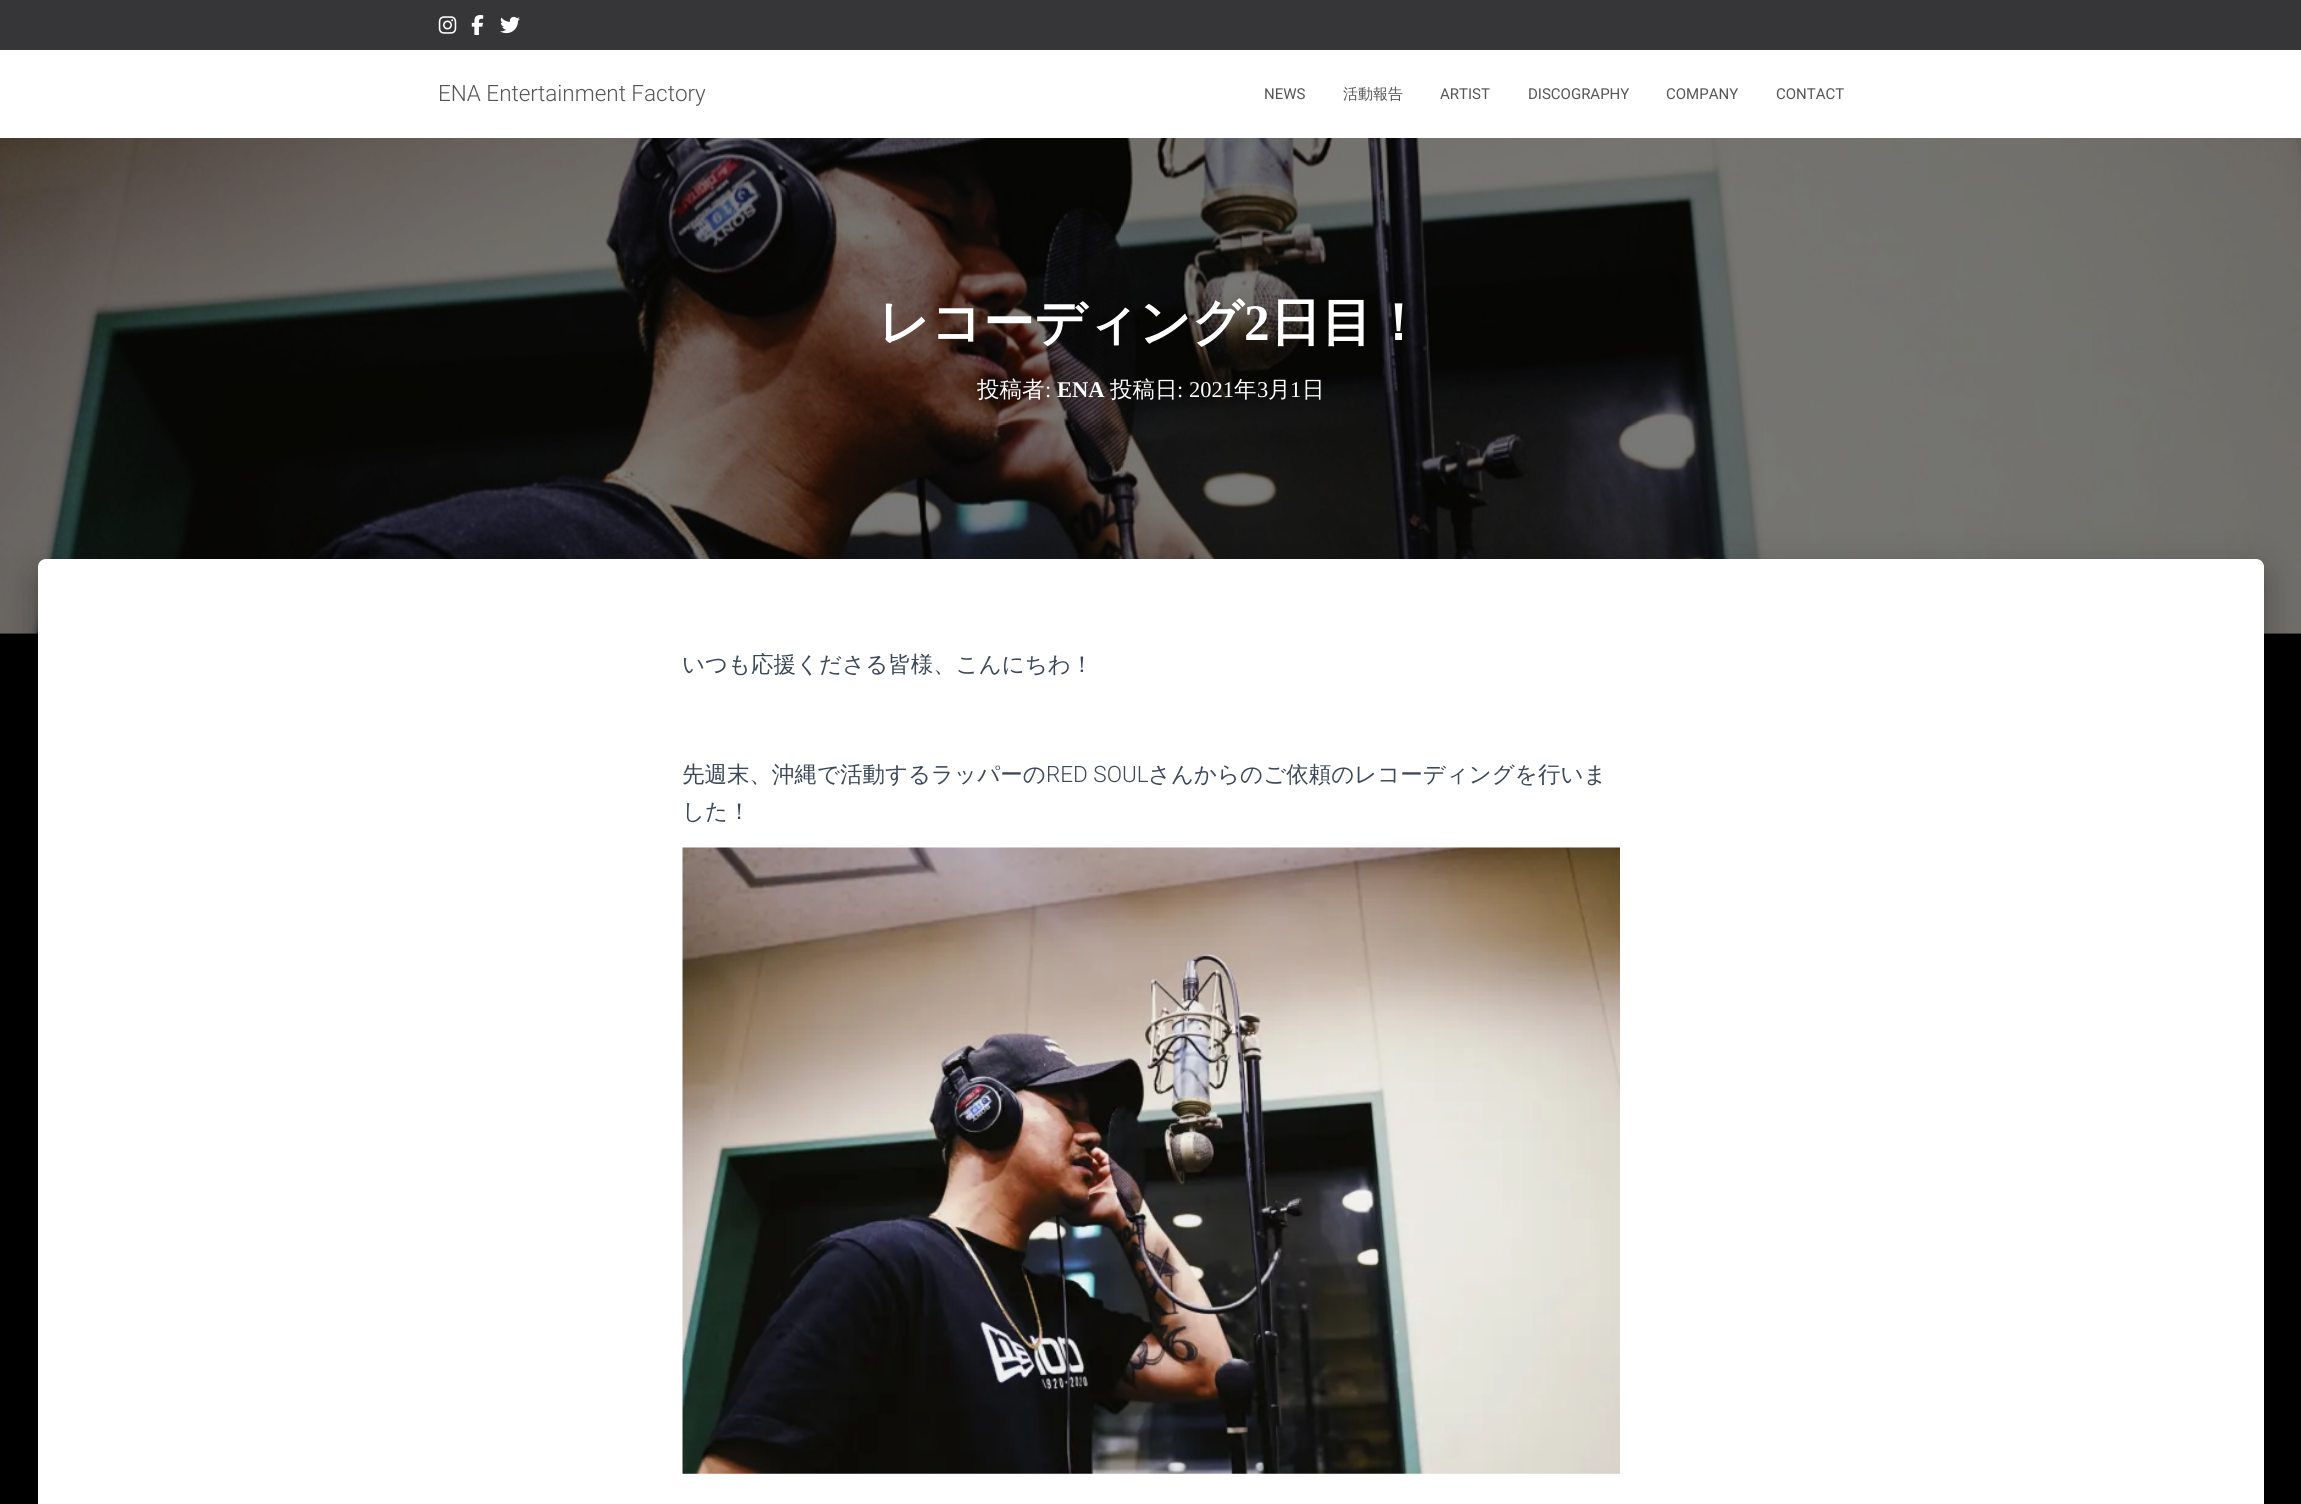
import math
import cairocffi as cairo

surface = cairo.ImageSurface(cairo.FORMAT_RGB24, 2301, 1504)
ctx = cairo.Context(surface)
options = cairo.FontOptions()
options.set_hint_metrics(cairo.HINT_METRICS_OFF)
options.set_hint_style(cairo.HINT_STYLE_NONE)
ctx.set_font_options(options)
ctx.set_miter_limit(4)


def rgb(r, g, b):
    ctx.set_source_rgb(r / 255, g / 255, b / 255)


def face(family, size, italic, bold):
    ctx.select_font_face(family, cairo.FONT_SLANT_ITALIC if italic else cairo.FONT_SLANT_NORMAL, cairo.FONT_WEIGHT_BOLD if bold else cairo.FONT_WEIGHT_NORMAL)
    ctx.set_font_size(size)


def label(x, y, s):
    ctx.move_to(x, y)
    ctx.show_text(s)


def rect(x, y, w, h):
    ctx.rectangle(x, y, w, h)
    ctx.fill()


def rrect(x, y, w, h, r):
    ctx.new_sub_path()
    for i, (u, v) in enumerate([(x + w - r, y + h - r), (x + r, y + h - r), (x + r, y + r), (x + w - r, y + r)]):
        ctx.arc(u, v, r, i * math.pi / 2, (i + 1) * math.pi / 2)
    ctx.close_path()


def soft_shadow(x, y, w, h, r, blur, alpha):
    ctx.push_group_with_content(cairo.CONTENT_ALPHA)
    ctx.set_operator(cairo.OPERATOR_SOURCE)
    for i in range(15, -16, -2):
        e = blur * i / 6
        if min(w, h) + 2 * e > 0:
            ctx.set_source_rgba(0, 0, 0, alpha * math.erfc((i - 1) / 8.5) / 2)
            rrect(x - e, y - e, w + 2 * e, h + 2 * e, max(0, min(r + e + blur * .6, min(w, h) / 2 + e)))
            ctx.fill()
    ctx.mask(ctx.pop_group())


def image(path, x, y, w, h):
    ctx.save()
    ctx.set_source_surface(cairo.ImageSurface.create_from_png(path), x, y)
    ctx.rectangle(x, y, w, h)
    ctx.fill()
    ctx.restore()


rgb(0, 0, 0)
ctx.paint()
rgb(54, 53, 55)
rect(0, 0, 2301, 50)
image('image0.png', 438, 16, 19, 18)
image('image1.png', 471, 15, 13, 20)
image('image2.png', 500, 16, 20, 18)
rgb(255, 255, 255)
rect(0, 50, 2301, 88)
face('Roboto Light', 22.5, 0, 0)
rgb(85, 85, 85)
label(438, 101, 'ENA Entertainment Factory')
face('Roboto', 15, 0, 0)
label(1264, 99, 'NEWS')
face('WenQuanYi Zen Hei Medium', 15, 0, 0)
label(1343, 99, '活動報告')
face('Roboto', 15, 0, 0)
label(1440, 99, 'ARTIST')
label(1528, 99, 'DISCOGRAPHY')
label(1666, 99, 'COMPANY')
label(1776, 99, 'CONTACT')
image('image3.png', 0, 138, 2301, 496)
face('WenQuanYi Zen Hei', 51.25, 0, 1)
rgb(255, 255, 255)
label(878, 340, 'レコーディング')
face('Liberation Serif', 51.25, 0, 1)
label(1244, 340, '2')
face('WenQuanYi Zen Hei', 51.25, 0, 1)
label(1270, 340, '日目！')
face('WenQuanYi Zen Hei Medium', 22.5, 0, 0)
label(977, 397, '投稿者')
face('Liberation Serif', 22.5, 0, 0)
label(1045, 397, ':')
face('Liberation Serif', 22.5, 0, 1)
label(1057, 397, 'ENA')
face('WenQuanYi Zen Hei Medium', 22.5, 0, 0)
label(1110, 397, '投稿日')
face('Liberation Serif', 22.5, 0, 0)
label(1177, 397, ': 2021')
face('WenQuanYi Zen Hei Medium', 22.5, 0, 0)
label(1234, 397, '年')
face('Liberation Serif', 22.5, 0, 0)
label(1257, 397, '3')
face('WenQuanYi Zen Hei Medium', 22.5, 0, 0)
label(1268, 397, '月')
face('Liberation Serif', 22.5, 0, 0)
label(1290, 397, '1')
face('WenQuanYi Zen Hei Medium', 22.5, 0, 0)
label(1302, 397, '日')
rgb(0, 0, 0)
soft_shadow(44, 575, 2214, 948, 1, 6, 0.2)
soft_shadow(31, 560, 2239, 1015, 14, 19, 0.12)
soft_shadow(35, 576, 2231, 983, 10, 15, 0.14)
rgb(255, 255, 255)
ctx.new_path()
ctx.move_to(46, 559)
ctx.line_to(2256, 559)
ctx.curve_to(2260.5, 559, 2264, 562.5, 2264, 567)
ctx.line_to(2264, 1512)
ctx.line_to(38, 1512)
ctx.line_to(38, 567)
ctx.curve_to(38, 562.5, 41.5, 559, 46, 559)
ctx.close_path()
ctx.fill()
rgb(60, 72, 88)
label(682, 672, 'いつも応援くださる皆様、こんにちわ！')
label(682, 782, '先週末、沖縄で活動するラッパーの')
face('Roboto Light', 22.5, 0, 0)
label(1046, 782, 'RED SOUL')
face('WenQuanYi Zen Hei Medium', 22.5, 0, 0)
label(1148, 782, 'さんからのご依頼のレコーディングを行いま')
label(682, 819, 'した！')
image('image4.png', 682, 847, 938, 627)
surface.write_to_png('render.png')
